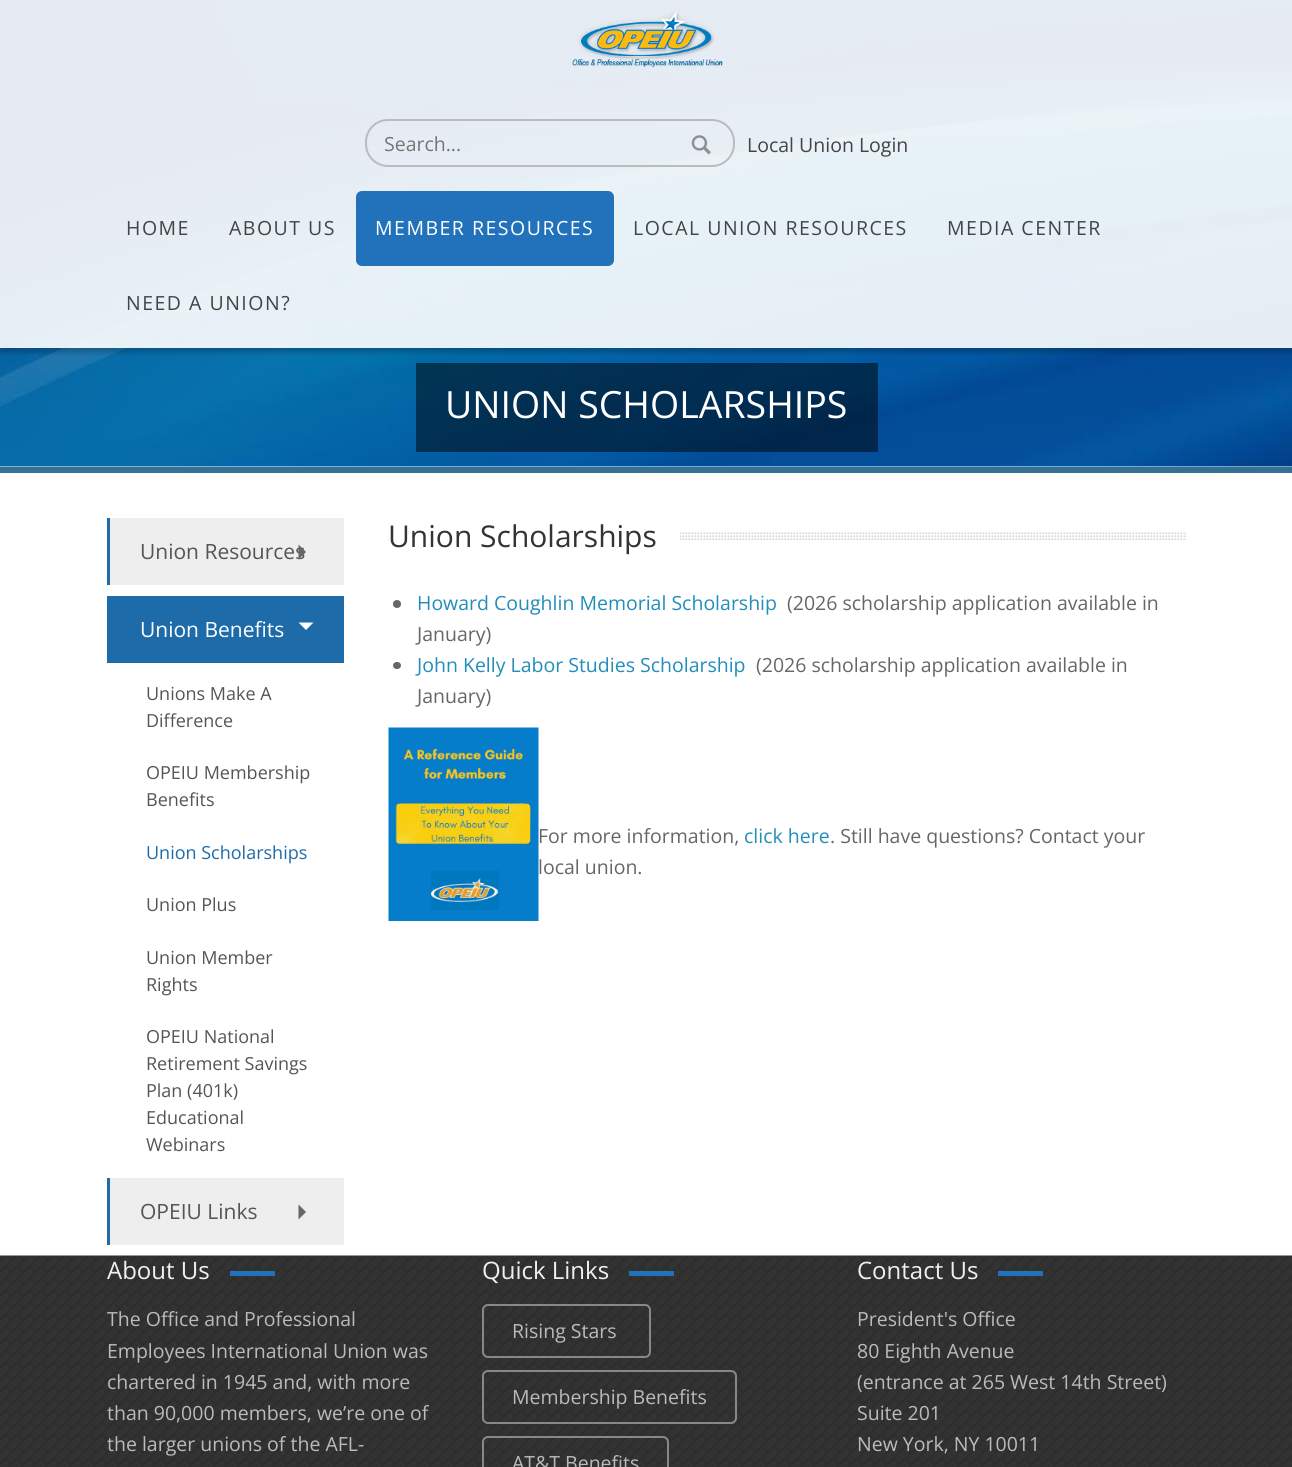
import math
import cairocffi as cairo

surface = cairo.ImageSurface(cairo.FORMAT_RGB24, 1292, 1467)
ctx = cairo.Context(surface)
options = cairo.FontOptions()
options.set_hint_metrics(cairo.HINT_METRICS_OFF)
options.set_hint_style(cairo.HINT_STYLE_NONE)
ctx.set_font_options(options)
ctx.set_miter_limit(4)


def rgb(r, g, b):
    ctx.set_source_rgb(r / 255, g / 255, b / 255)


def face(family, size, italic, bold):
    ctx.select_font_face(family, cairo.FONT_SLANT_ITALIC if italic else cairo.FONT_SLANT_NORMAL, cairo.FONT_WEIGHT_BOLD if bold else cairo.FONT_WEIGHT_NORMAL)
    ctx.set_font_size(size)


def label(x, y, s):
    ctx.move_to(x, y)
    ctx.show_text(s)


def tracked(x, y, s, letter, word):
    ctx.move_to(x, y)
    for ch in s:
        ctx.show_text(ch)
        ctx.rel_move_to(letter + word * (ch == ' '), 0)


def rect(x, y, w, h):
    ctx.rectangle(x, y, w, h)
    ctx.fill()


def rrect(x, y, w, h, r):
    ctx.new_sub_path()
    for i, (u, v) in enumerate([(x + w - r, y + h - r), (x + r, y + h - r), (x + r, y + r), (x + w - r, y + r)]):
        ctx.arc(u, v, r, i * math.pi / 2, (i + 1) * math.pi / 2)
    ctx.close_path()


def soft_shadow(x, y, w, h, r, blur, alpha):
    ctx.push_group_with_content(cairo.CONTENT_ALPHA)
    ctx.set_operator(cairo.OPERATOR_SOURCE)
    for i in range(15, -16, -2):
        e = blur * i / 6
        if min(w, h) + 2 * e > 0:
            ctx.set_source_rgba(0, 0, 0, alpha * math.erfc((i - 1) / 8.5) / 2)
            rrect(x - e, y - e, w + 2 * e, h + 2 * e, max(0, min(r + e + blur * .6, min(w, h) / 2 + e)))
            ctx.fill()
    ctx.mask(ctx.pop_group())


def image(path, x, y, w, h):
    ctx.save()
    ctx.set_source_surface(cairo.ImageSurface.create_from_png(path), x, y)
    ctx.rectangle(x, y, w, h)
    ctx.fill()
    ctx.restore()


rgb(255, 255, 255)
ctx.paint()
image('image0.png', 0, 0, 1292, 467)
rgb(52, 113, 148)
rect(0, 467, 1292, 6)
ctx.save()
ctx.rectangle(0, 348, 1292, 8)
ctx.clip()
rgb(0, 0, 0)
soft_shadow(0, 5, 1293, 348, 0, 2, 0.2)
ctx.restore()
ctx.set_source_rgba(1, 1, 1, 0.9)
rect(0, 0, 1292, 348)
image('image1.png', 572, 11, 151, 57)
rrect(366, 120, 368, 46, 22)
rgb(187, 187, 187)
ctx.stroke()
face('Open Sans', 19.5, 0, 0)
rgb(117, 117, 117)
label(384, 151, 'Search...')
image('image2.png', 691, 135, 20, 20)
rgb(68, 68, 68)
label(747, 152, 'Local Union Login')
tracked(126, 235, 'HOME', 1.5, 0)
tracked(229, 235, 'ABOUT US', 1.5, 0)
rgb(34, 114, 187)
rrect(356, 191, 258, 75, 6)
ctx.fill()
rgb(255, 255, 255)
tracked(375, 235, 'MEMBER RESOURCES', 1.5, 0)
rgb(68, 68, 68)
tracked(633, 235, 'LOCAL UNION RESOURCES', 1.5, 0)
tracked(947, 235, 'MEDIA CENTER', 1.5, 0)
tracked(126, 310, 'NEED A UNION?', 1.5, 0)
ctx.set_source_rgba(0, 0, 0, 0.5)
rect(416, 363, 462, 89)
face('Open Sans', 37.5, 0, 0)
rgb(255, 255, 255)
label(445, 418, 'UNION SCHOLARSHIPS')
rgb(238, 238, 238)
rect(110, 518, 234, 67)
rgb(29, 107, 169)
rect(107, 518, 3, 67)
face('Open Sans', 21, 0, 0)
rgb(85, 85, 85)
label(140, 559, 'Union Resources')
rgb(102, 102, 102)
ctx.new_path()
ctx.move_to(298.5, 559.5)
ctx.line_to(298.5, 544.5)
ctx.line_to(306, 552)
ctx.close_path()
ctx.fill()
rgb(29, 107, 169)
rect(107, 596, 237, 67)
rgb(255, 255, 255)
label(140, 637, 'Union Benefits')
ctx.new_path()
ctx.move_to(298.5, 622.5)
ctx.line_to(313.5, 622.5)
ctx.line_to(306, 630)
ctx.close_path()
ctx.fill()
face('Open Sans', 18, 0, 0)
rgb(85, 85, 85)
label(146, 700, 'Unions Make A')
label(146, 727, 'Difference')
label(146, 779, 'OPEIU Membership')
label(146, 806, 'Benefits')
rgb(29, 107, 169)
label(146, 859, 'Union Scholarships')
rgb(85, 85, 85)
label(146, 911, 'Union Plus')
label(146, 964, 'Union Member')
label(146, 991, 'Rights')
label(146, 1043, 'OPEIU National')
label(146, 1070, 'Retirement Savings')
label(146, 1097, 'Plan (401k)')
label(146, 1124, 'Educational')
label(146, 1151, 'Webinars')
rgb(238, 238, 238)
rect(110, 1178, 234, 67)
rgb(29, 107, 169)
rect(107, 1178, 3, 67)
face('Open Sans', 21, 0, 0)
rgb(85, 85, 85)
label(140, 1219, 'OPEIU Links')
rgb(102, 102, 102)
ctx.new_path()
ctx.move_to(298.5, 1219.5)
ctx.line_to(298.5, 1204.5)
ctx.line_to(306, 1212)
ctx.close_path()
ctx.fill()
image('image3.png', 388, 532, 799, 8)
rgb(255, 255, 255)
rect(389, 532, 291, 8)
face('Open Sans', 30, 0, 0)
rgb(51, 51, 51)
label(388, 547, 'Union Scholarships')
rgb(102, 102, 102)
ctx.new_path()
ctx.arc(397, 604, 4, 0, 2 * math.pi)
ctx.fill()
face('Open Sans', 19.5, 0, 0)
rgb(34, 141, 187)
label(417, 610, 'Howard Coughlin Memorial Scholarship')
rgb(102, 102, 102)
label(787, 610, '(2026 scholarship application available in')
label(417, 641, 'January)')
rrect(393, 662, 8, 7, 3.5)
ctx.fill()
rgb(34, 141, 187)
label(417, 672, 'John Kelly Labor Studies Scholarship')
rgb(102, 102, 102)
label(756, 672, '(2026 scholarship application available in')
label(417, 703, 'January)')
image('image4.png', 388, 727, 151, 194)
label(538, 843, 'For more information,')
rgb(34, 141, 187)
label(744, 843, 'click here')
rgb(102, 102, 102)
label(830, 843, '. Still have questions? Contact your')
label(538, 874, 'local union.')
image('image5.png', 0, 1255, 1292, 212)
face('Open Sans', 24, 0, 0)
rgb(240, 240, 240)
label(107, 1279, 'About Us')
rgb(34, 114, 187)
rect(230, 1271, 45, 5)
face('Open Sans', 19.5, 0, 0)
rgb(187, 187, 187)
label(107, 1326, 'The Office and Professional')
label(107, 1358, 'Employees International Union was')
label(107, 1389, 'chartered in 1945 and, with more')
label(107, 1420, 'than 90,000 members, we’re one of')
label(107, 1451, 'the larger unions of the AFL-')
face('Open Sans', 24, 0, 0)
rgb(240, 240, 240)
label(482, 1279, 'Quick Links')
rgb(34, 114, 187)
rect(629, 1271, 45, 5)
rrect(483, 1305, 167, 52, 5)
rgb(136, 136, 136)
ctx.stroke()
face('Open Sans', 19.5, 0, 0)
rgb(187, 187, 187)
label(512, 1338, 'Rising Stars')
rrect(483, 1371, 253, 52, 5)
rgb(136, 136, 136)
ctx.stroke()
rgb(187, 187, 187)
label(512, 1404, 'Membership Benefits')
rrect(483, 1437, 185, 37, 5)
rgb(136, 136, 136)
ctx.stroke()
rgb(187, 187, 187)
label(512, 1470, 'AT&T Benefits')
face('Open Sans', 24, 0, 0)
rgb(240, 240, 240)
label(857, 1279, 'Contact Us')
rgb(34, 114, 187)
rect(998, 1271, 45, 5)
face('Open Sans', 19.5, 0, 0)
rgb(187, 187, 187)
label(857, 1326, 'President\'s Office')
label(857, 1358, '80 Eighth Avenue')
label(857, 1389, '(entrance at 265 West 14th Street)')
label(857, 1420, 'Suite 201')
label(857, 1451, 'New York, NY 10011')
surface.write_to_png('render.png')
